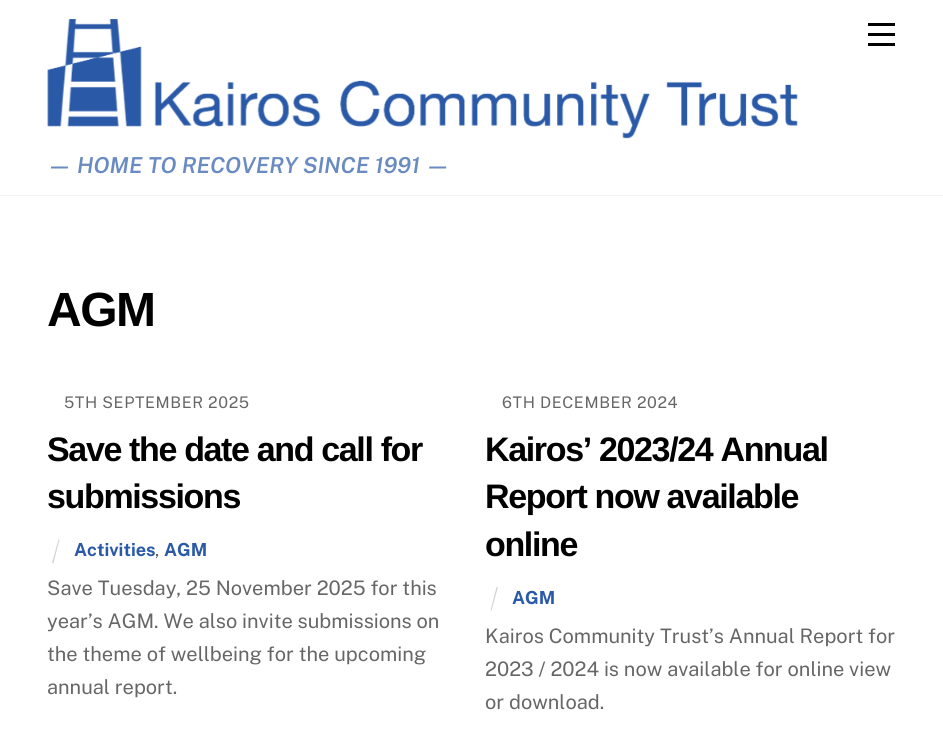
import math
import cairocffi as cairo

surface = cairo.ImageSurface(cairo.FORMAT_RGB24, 943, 753)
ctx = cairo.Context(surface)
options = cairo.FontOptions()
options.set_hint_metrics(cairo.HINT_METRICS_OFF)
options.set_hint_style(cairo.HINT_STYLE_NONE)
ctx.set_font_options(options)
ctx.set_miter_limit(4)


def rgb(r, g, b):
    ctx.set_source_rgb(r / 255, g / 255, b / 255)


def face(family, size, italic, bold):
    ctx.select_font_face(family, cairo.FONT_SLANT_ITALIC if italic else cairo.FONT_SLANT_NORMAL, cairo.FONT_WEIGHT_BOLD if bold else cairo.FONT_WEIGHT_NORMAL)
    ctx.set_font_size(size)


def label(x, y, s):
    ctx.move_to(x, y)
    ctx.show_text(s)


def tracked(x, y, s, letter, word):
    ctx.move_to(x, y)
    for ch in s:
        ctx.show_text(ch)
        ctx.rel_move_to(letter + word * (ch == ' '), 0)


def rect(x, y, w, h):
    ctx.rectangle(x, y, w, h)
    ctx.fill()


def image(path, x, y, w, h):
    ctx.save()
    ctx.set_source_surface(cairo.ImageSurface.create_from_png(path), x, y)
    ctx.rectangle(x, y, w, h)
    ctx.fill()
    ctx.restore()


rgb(255, 255, 255)
ctx.paint()
rgb(242, 242, 242)
rect(0, 195, 943, 1)
rgb(0, 0, 0)
rect(868, 43, 27, 3)
rect(868, 23, 27, 3)
rect(868, 33, 27, 3)
image('image0.png', 47, 19, 751, 120)
face('Public Sans SemiBold', 22, 1, 0)
rgb(106, 139, 193)
label(47, 173, '— HOME TO RECOVERY SINCE 1991 —')
face('Liberation Sans', 48, 0, 1)
rgb(0, 0, 0)
tracked(47, 326, 'AGM', -1.5, 0)
face('Public Sans', 16, 0, 0)
rgb(102, 102, 102)
tracked(64, 408, '5TH SEPTEMBER 2025', 0.6, 0)
face('Liberation Sans', 34, 0, 1)
rgb(0, 0, 0)
tracked(47, 461, 'Save the date and call for', -1.35, 0)
tracked(47, 508, 'submissions', -1.35, 0)
rgb(211, 211, 211)
ctx.new_path()
ctx.move_to(58.5, 539.5)
ctx.line_to(59.5, 539.5)
ctx.line_to(53.5, 563)
ctx.line_to(52, 563)
ctx.close_path()
ctx.fill()
face('Public Sans', 18, 0, 1)
rgb(42, 89, 167)
label(74, 556, 'Activities')
face('Public Sans', 18, 0, 0)
rgb(102, 102, 102)
label(155, 556, ',')
face('Public Sans', 18, 0, 1)
rgb(42, 89, 167)
label(164, 556, 'AGM')
face('Public Sans', 20, 0, 0)
rgb(102, 102, 102)
label(47, 595, 'Save Tuesday, 25 November 2025 for this')
label(47, 628, 'year’s AGM. We also invite submissions on')
label(47, 661, 'the theme of wellbeing for the upcoming')
label(47, 694, 'annual report.')
face('Public Sans', 16, 0, 0)
tracked(502, 408, '6TH DECEMBER 2024', 0.6, 0)
face('Liberation Sans', 34, 0, 1)
rgb(0, 0, 0)
tracked(485, 461, 'Kairos’ 2023/24 Annual', -1.35, 0)
tracked(485, 508, 'Report now available', -1.35, 0)
tracked(485, 556, 'online', -1.35, 0)
rgb(211, 211, 211)
ctx.new_path()
ctx.move_to(496.5, 587)
ctx.line_to(498, 587)
ctx.line_to(491.5, 610.5)
ctx.line_to(490.5, 610.5)
ctx.close_path()
ctx.fill()
face('Public Sans', 18, 0, 1)
rgb(42, 89, 167)
label(512, 604, 'AGM')
face('Public Sans', 20, 0, 0)
rgb(102, 102, 102)
label(485, 643, 'Kairos Community Trust’s Annual Report for')
label(485, 676, '2023 / 2024 is now available for online view')
label(485, 709, 'or download.')
surface.write_to_png('render.png')
